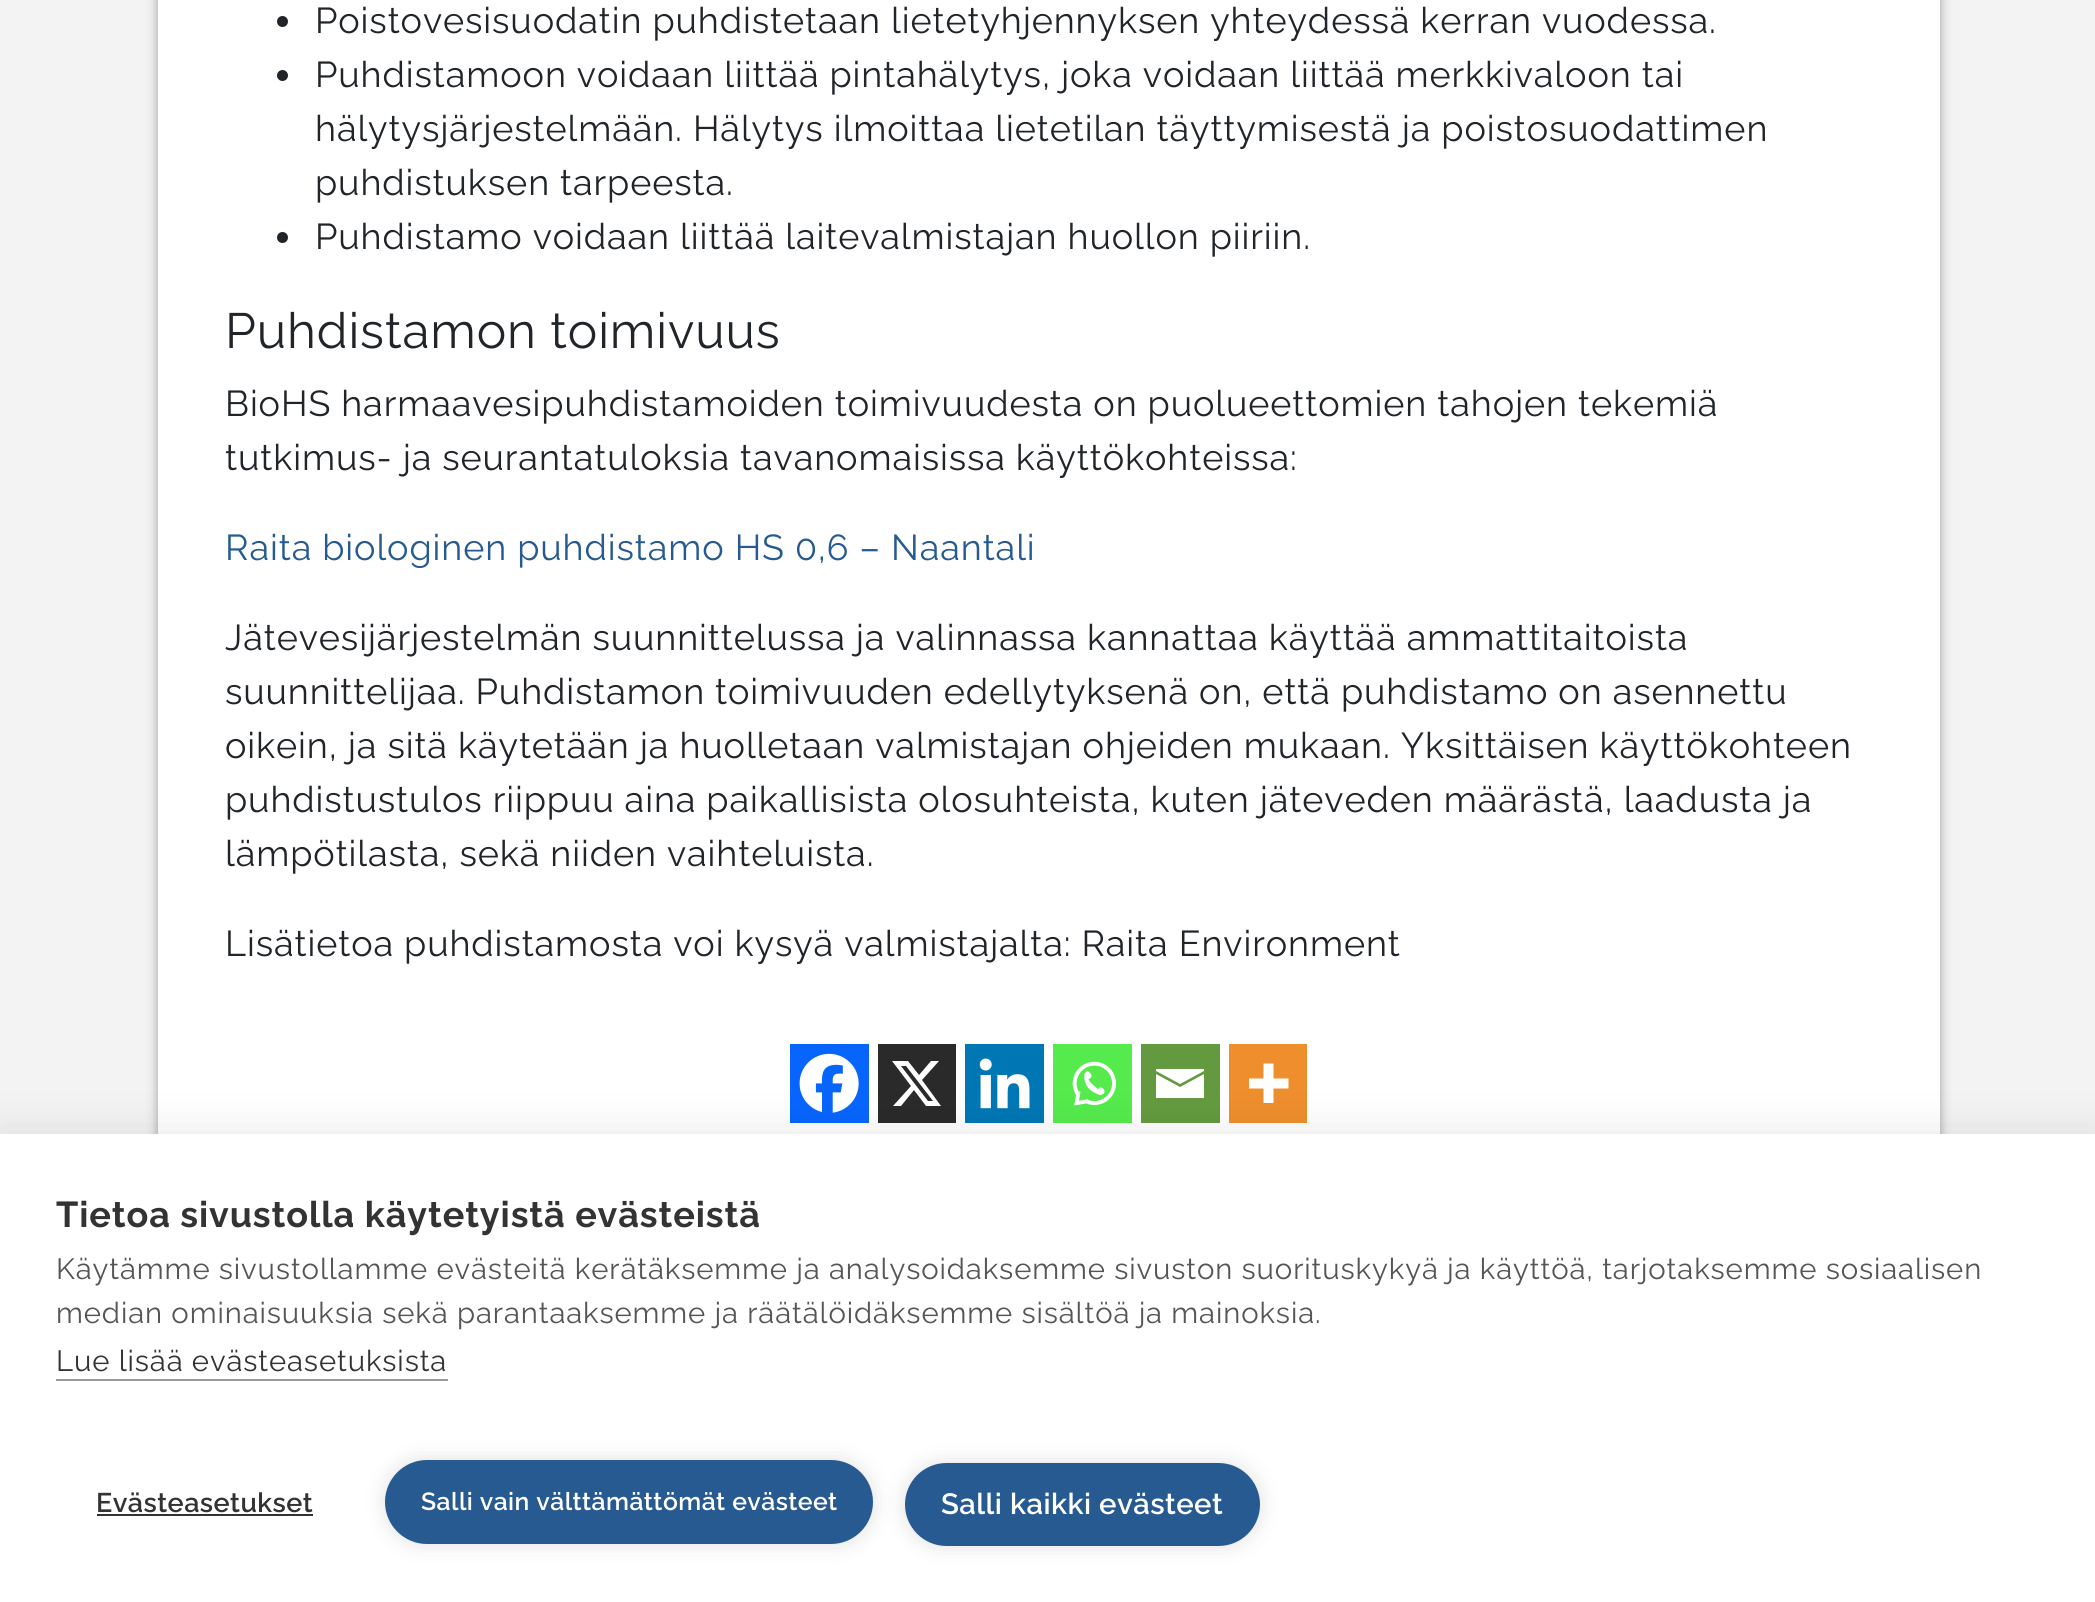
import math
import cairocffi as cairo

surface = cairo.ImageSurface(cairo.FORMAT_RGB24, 2095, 1602)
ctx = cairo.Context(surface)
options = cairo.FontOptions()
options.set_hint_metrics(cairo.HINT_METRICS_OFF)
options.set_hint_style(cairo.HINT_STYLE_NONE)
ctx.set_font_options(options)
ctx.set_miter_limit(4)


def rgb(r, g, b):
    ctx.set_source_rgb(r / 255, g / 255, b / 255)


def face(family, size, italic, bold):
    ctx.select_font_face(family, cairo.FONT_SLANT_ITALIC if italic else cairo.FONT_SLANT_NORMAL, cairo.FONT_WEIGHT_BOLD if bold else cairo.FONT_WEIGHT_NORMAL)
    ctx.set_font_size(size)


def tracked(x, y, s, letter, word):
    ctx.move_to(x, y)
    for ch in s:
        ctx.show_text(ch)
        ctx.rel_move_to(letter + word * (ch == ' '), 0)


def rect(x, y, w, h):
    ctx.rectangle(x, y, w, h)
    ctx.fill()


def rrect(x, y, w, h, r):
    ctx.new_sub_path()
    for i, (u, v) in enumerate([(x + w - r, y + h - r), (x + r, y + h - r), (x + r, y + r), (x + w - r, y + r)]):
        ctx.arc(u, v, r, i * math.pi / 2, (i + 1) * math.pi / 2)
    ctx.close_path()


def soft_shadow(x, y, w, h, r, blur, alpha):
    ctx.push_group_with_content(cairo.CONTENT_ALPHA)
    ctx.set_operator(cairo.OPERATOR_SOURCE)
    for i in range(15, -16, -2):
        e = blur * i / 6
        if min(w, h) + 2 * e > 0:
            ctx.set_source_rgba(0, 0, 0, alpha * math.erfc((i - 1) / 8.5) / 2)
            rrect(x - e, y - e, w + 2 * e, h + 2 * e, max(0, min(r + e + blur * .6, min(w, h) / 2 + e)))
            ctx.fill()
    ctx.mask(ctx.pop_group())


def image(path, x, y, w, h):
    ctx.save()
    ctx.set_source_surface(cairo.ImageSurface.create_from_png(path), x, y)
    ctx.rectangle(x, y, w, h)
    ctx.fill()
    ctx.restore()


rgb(243, 243, 243)
ctx.paint()
rgb(0, 0, 0)
soft_shadow(158, -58, 1782, 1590, 41, 5.5, 0.36)
rgb(255, 255, 255)
rect(158, 0, 1782, 1134)
rgb(33, 37, 41)
ctx.arc(282.5, 21.5, 5.5, 0, 2 * math.pi)
ctx.fill()
face('Raleway', 36, 0, 0)
tracked(315, 33, 'Poistovesisuodatin puhdistetaan lietetyhjennyksen yhteydessä kerran vuodessa.', 0.9, 0)
ctx.new_path()
ctx.arc(282.5, 75.5, 5.5, 0, 2 * math.pi)
ctx.fill()
tracked(315, 87, 'Puhdistamoon voidaan liittää pintahälytys, joka voidaan liittää merkkivaloon tai', 0.9, 0)
tracked(315, 141, 'hälytysjärjestelmään. Hälytys ilmoittaa lietetilan täyttymisestä ja poistosuodattimen', 0.9, 0)
tracked(315, 195, 'puhdistuksen tarpeesta.', 0.9, 0)
ctx.new_path()
ctx.arc(282.5, 237.5, 5.5, 0, 2 * math.pi)
ctx.fill()
tracked(315, 249, 'Puhdistamo voidaan liittää laitevalmistajan huollon piiriin.', 0.9, 0)
face('Raleway', 49.5, 0, 0)
tracked(225, 348, 'Puhdistamon toimivuus', 0.9, 0)
face('Raleway', 36, 0, 0)
tracked(225, 416, 'BioHS harmaavesipuhdistamoiden toimivuudesta on puolueettomien tahojen tekemiä', 0.9, 0)
tracked(225, 470, 'tutkimus- ja seurantatuloksia tavanomaisissa käyttökohteissa:', 0.9, 0)
rgb(38, 90, 144)
tracked(225, 560, 'Raita biologinen puhdistamo HS 0,6 – Naantali', 0.9, 0)
rgb(33, 37, 41)
tracked(225, 650, 'Jätevesijärjestelmän suunnittelussa ja valinnassa kannattaa käyttää ammattitaitoista', 0.9, 0)
tracked(225, 704, 'suunnittelijaa. Puhdistamon toimivuuden edellytyksenä on, että puhdistamo on asennettu', 0.9, 0)
tracked(225, 758, 'oikein, ja sitä käytetään ja huolletaan valmistajan ohjeiden mukaan. Yksittäisen käyttökohteen', 0.9, 0)
tracked(225, 812, 'puhdistustulos riippuu aina paikallisista olosuhteista, kuten jäteveden määrästä, laadusta ja', 0.9, 0)
tracked(225, 866, 'lämpötilasta, sekä niiden vaihteluista.', 0.9, 0)
tracked(225, 956, 'Lisätietoa puhdistamosta voi kysyä valmistajalta: Raita Environment', 0.9, 0)
rgb(7, 101, 254)
rect(790, 1044, 79, 79)
image('image0.png', 799, 1053, 60, 60)
rgb(42, 42, 42)
rect(878, 1044, 78, 79)
rgb(255, 255, 255)
ctx.new_path()
ctx.move_to(931, 1061)
ctx.line_to(939, 1061)
ctx.line_to(922, 1080)
ctx.line_to(941, 1106)
ctx.line_to(926, 1106)
ctx.line_to(914, 1090)
ctx.line_to(901, 1106)
ctx.line_to(893, 1106)
ctx.line_to(911, 1086)
ctx.line_to(892, 1061)
ctx.line_to(908, 1061)
ctx.line_to(919, 1075)
ctx.close_path()
ctx.move_to(928, 1101)
ctx.line_to(933, 1101)
ctx.line_to(906, 1066)
ctx.line_to(901, 1066)
ctx.close_path()
ctx.fill()
rgb(0, 119, 181)
rect(965, 1044, 79, 79)
image('image1.png', 979, 1058, 51, 51)
rgb(85, 235, 76)
rect(1053, 1044, 79, 79)
image('image2.png', 1072, 1061, 44, 45)
rgb(100, 154, 63)
rect(1141, 1044, 79, 79)
rgb(255, 255, 255)
ctx.new_path()
ctx.move_to(1154, 1069)
ctx.line_to(1204, 1069)
ctx.line_to(1204, 1071)
ctx.line_to(1180, 1084)
ctx.line_to(1156, 1071)
ctx.line_to(1156, 1069)
ctx.move_to(1156, 1074)
ctx.line_to(1180, 1087)
ctx.line_to(1204, 1074)
ctx.line_to(1204, 1098)
ctx.line_to(1156, 1098)
ctx.line_to(1156, 1074)
ctx.fill()
rgb(238, 142, 45)
rect(1229, 1044, 78, 79)
rgb(255, 255, 255)
ctx.set_fill_rule(cairo.FILL_RULE_EVEN_ODD)
ctx.new_path()
ctx.move_to(1273.5, 1078.5)
ctx.line_to(1273.5, 1063.5)
ctx.line_to(1263.5, 1063.5)
ctx.line_to(1263.5, 1078.5)
ctx.line_to(1249, 1078.5)
ctx.line_to(1249, 1088.5)
ctx.line_to(1263.5, 1088.5)
ctx.line_to(1263.5, 1103)
ctx.line_to(1273.5, 1103)
ctx.line_to(1273.5, 1088.5)
ctx.line_to(1288.5, 1088.5)
ctx.line_to(1288.5, 1078.5)
ctx.close_path()
ctx.fill()
rgb(0, 0, 0)
soft_shadow(0, 1134, 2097, 468, 0, 22.5, 0.1)
rgb(255, 255, 255)
rect(0, 1134, 2095, 468)
face('Raleway', 36, 0, 1)
rgb(51, 51, 51)
tracked(56, 1227, 'Tietoa sivustolla käytetyistä evästeistä', 0.9, 0)
face('Raleway', 29.25, 0, 0)
rgb(85, 85, 85)
tracked(56, 1279, 'Käytämme sivustollamme evästeitä kerätäksemme ja analysoidaksemme sivuston suorituskykyä ja käyttöä, tarjotaksemme sosiaalisen', 0.9, 0)
tracked(56, 1323, 'median ominaisuuksia sekä parantaaksemme ja räätälöidäksemme sisältöä ja mainoksia.', 0.9, 0)
rgb(51, 51, 51)
tracked(56, 1371, 'Lue lisää evästeasetuksista', 0.9, 0)
rgb(153, 153, 153)
rect(56, 1379, 392, 2)
face('Raleway SemiBold', 27, 0, 0)
rgb(51, 51, 51)
tracked(96, 1512, 'Evästeasetukset', 0.45, 0)
rect(97, 1514, 216, 2)
rgb(0, 0, 0)
soft_shadow(385, 1460, 488, 84, 42, 11, 0.12)
rgb(39, 90, 144)
rrect(385, 1460, 488, 84, 42)
ctx.fill()
face('Raleway SemiBold', 24.75, 0, 0)
rgb(255, 255, 255)
tracked(421, 1510, 'Salli vain välttämättömät evästeet', 0.45, 0)
rgb(0, 0, 0)
soft_shadow(905, 1463, 355, 83, 41.5, 11, 0.12)
rgb(39, 90, 144)
rrect(905, 1463, 355, 83, 41.5)
ctx.fill()
face('Raleway SemiBold', 29.25, 0, 0)
rgb(255, 255, 255)
tracked(941, 1514, 'Salli kaikki evästeet', 0.45, 0)
surface.write_to_png('render.png')
